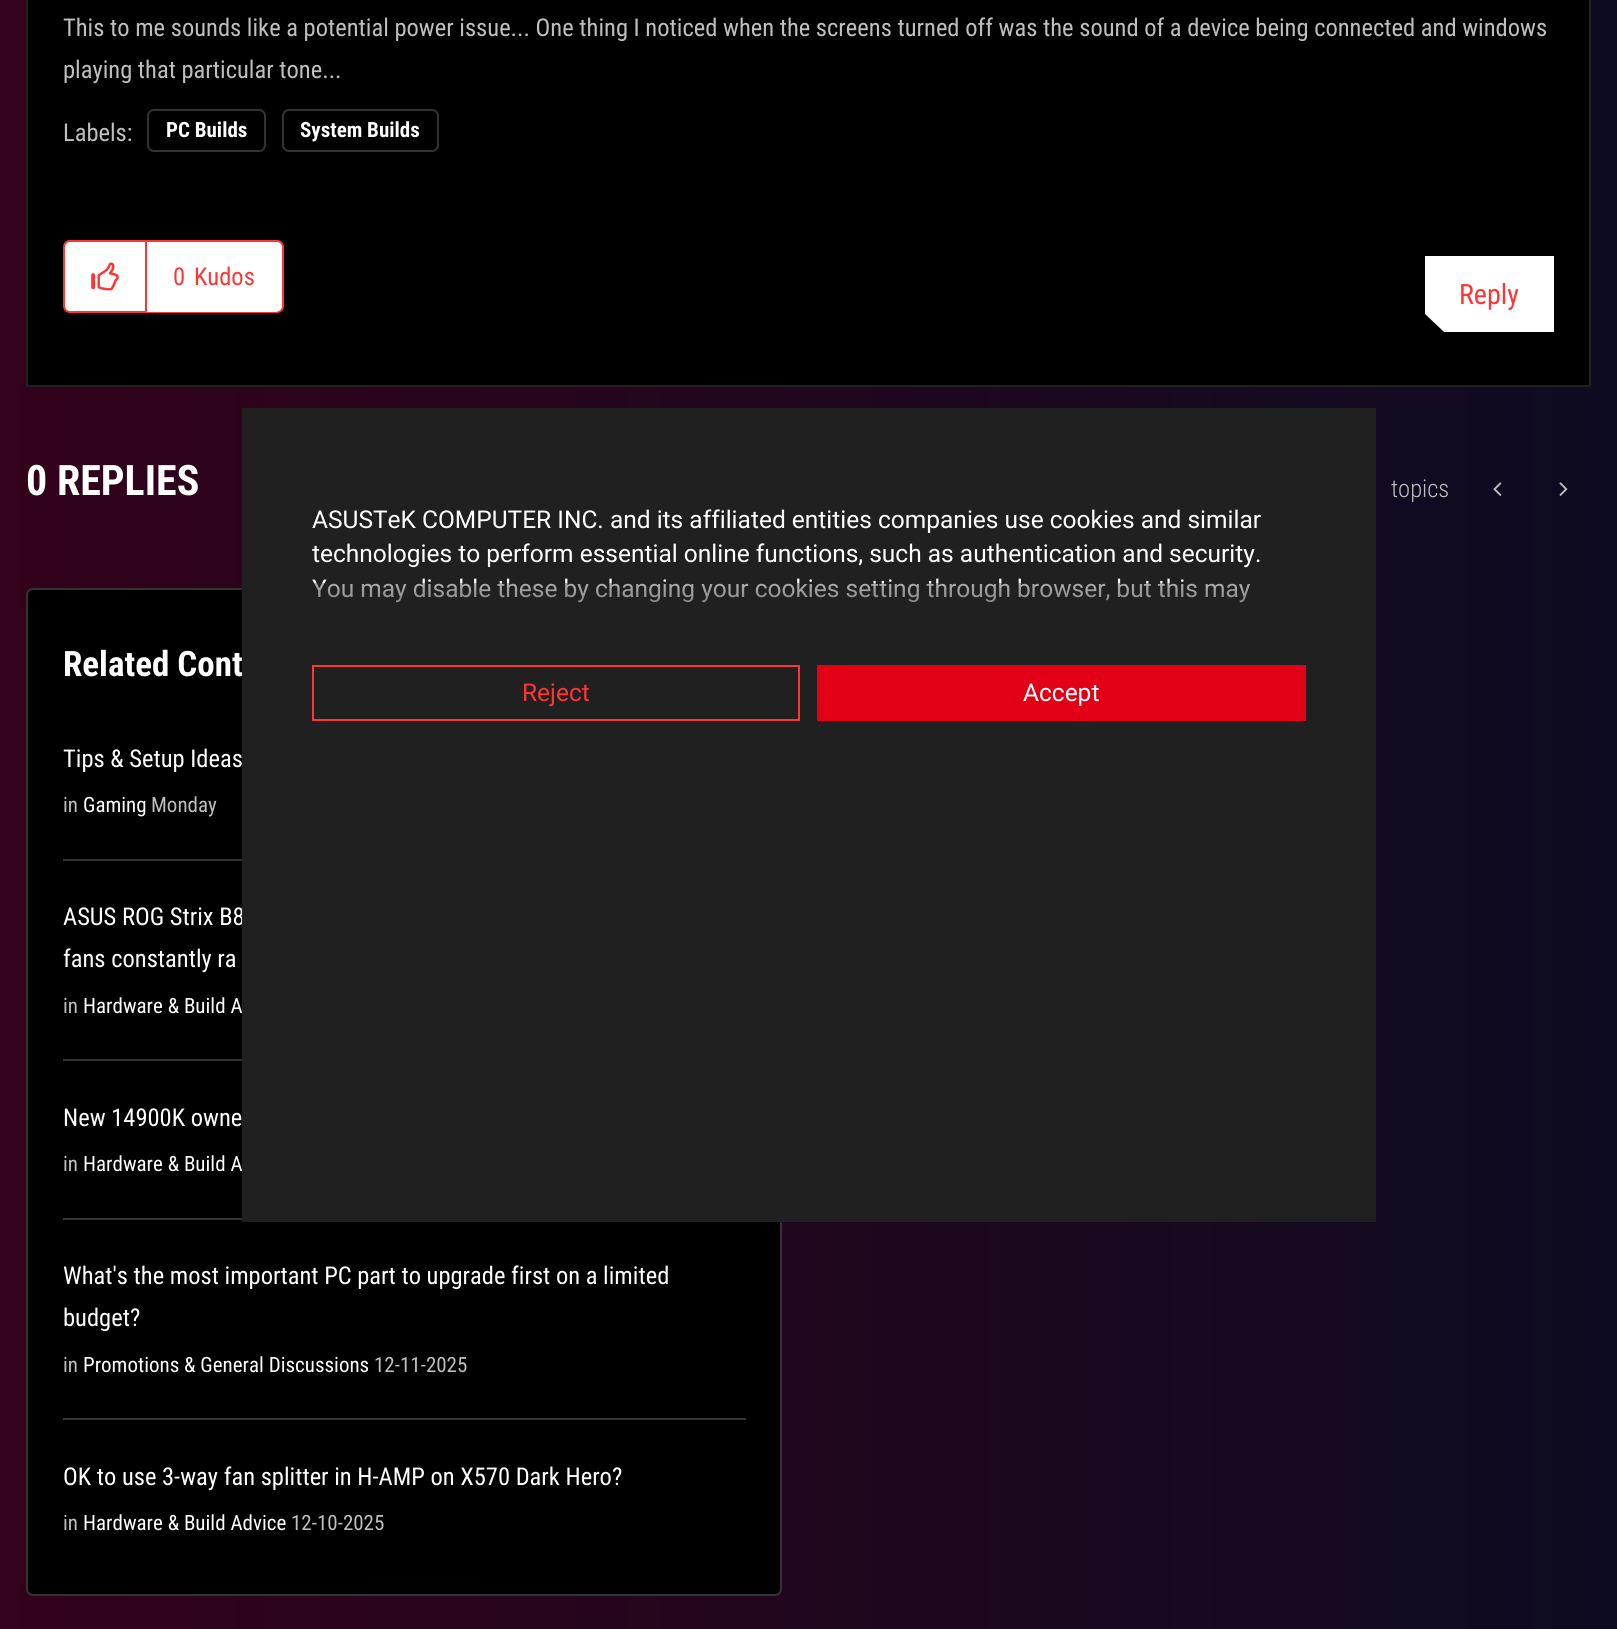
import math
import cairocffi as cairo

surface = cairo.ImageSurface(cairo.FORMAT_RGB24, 1617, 1629)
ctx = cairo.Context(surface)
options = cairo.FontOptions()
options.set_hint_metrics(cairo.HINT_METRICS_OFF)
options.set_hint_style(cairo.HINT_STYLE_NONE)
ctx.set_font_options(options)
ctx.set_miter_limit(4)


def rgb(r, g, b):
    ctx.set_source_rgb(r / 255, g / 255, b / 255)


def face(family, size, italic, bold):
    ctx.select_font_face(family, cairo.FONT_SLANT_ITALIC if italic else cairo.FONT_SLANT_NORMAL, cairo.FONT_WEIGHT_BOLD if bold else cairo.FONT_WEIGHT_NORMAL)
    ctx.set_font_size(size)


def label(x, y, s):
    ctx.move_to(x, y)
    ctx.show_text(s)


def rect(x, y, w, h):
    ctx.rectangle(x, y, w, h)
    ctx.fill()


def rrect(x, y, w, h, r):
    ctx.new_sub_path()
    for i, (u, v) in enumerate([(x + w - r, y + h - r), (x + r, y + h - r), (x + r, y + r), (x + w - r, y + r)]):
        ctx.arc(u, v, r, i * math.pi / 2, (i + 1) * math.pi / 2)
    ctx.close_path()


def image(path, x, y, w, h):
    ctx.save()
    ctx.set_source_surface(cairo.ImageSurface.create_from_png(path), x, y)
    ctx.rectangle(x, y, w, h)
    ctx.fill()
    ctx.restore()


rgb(255, 255, 255)
ctx.paint()
gradient = cairo.LinearGradient(0, -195, 1617, -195)
gradient.add_color_stop_rgba(0, 0.2, 0.008, 0.106, 1)
gradient.add_color_stop_rgba(1, 0.051, 0.043, 0.129, 1)
ctx.set_source(gradient)
rect(0, 0, 1617, 1629)
rgb(0, 0, 0)
ctx.rectangle(27, -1, 1563, 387)
ctx.fill_preserve()
rgb(32, 32, 32)
ctx.stroke()
face('Roboto Condensed', 24.5, 0, 0)
rgb(191, 191, 191)
label(63, 36, 'This to me sounds like a potential power issue... One thing I noticed when the screens turned off was the sound of a device being connected and windows')
label(63, 78, 'playing that particular tone...')
label(63, 141, 'Labels:')
rrect(148, 110, 117, 41, 6)
rgb(51, 51, 51)
ctx.stroke()
face('Roboto Condensed', 21, 0, 1)
rgb(255, 255, 255)
label(166, 137, 'PC Builds')
rrect(283, 110, 155, 41, 6)
rgb(51, 51, 51)
ctx.stroke()
rgb(255, 255, 255)
label(300, 137, 'System Builds')
rrect(64, 241, 219, 71, 6)
ctx.fill_preserve()
rgb(255, 53, 53)
ctx.stroke()
rect(145, 242, 2, 70)
image('image0.png', 91, 262, 28, 29)
rgb(255, 255, 255)
ctx.new_path()
ctx.move_to(147, 242)
ctx.line_to(275, 242)
ctx.curve_to(279, 242, 282, 245, 282, 249)
ctx.line_to(282, 305)
ctx.curve_to(282, 309, 279, 312, 275, 312)
ctx.line_to(147, 312)
ctx.close_path()
ctx.fill()
face('Roboto Condensed', 24.5, 0, 0)
rgb(255, 53, 53)
label(173, 285, '0')
label(194, 285, 'Kudos')
ctx.save()
ctx.rectangle(1425, 256, 129, 77)
ctx.clip()
rgb(255, 255, 255)
ctx.new_path()
ctx.move_to(1424, 256)
ctx.line_to(1424, 313)
ctx.line_to(1444, 332)
ctx.line_to(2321, 332)
ctx.line_to(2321, 256)
ctx.close_path()
ctx.fill()
ctx.restore()
face('Roboto Condensed', 28, 0, 0)
label(1459, 304, 'Reply')
face('Roboto Condensed', 42, 0, 1)
rgb(255, 255, 255)
label(26, 495, '0 REPLIES')
face('Roboto Condensed Light', 24.5, 0, 0)
rgb(191, 191, 191)
label(1391, 497, 'topics')
image('image1.png', 1493, 482, 9, 14)
image('image2.png', 1559, 482, 9, 14)
rgb(0, 0, 0)
rrect(27, 589, 754, 1006, 6)
ctx.fill_preserve()
rgb(51, 51, 51)
ctx.stroke()
face('Roboto Condensed', 35, 0, 1)
rgb(255, 255, 255)
label(63, 676, 'Related Cont')
rgb(51, 51, 51)
rect(63, 859, 179, 2)
face('Roboto Condensed', 24.5, 0, 0)
rgb(255, 255, 255)
label(63, 767, 'Tips & Setup Ideas')
face('Roboto Condensed', 21, 0, 0)
rgb(191, 191, 191)
label(63, 812, 'in')
rgb(255, 255, 255)
label(83, 812, 'Gaming')
rgb(191, 191, 191)
label(151, 812, 'Monday')
rgb(51, 51, 51)
rect(63, 1059, 179, 2)
face('Roboto Condensed', 24.5, 0, 0)
rgb(255, 255, 255)
label(63, 925, 'ASUS ROG Strix B8')
label(63, 967, 'fans constantly ra')
face('Roboto Condensed', 21, 0, 0)
rgb(191, 191, 191)
label(63, 1013, 'in')
rgb(255, 255, 255)
label(83, 1013, 'Hardware & Build A')
rgb(51, 51, 51)
rect(63, 1218, 179, 2)
face('Roboto Condensed', 24.5, 0, 0)
rgb(255, 255, 255)
label(63, 1126, 'New 14900K owne')
face('Roboto Condensed', 21, 0, 0)
rgb(191, 191, 191)
label(63, 1171, 'in')
rgb(255, 255, 255)
label(83, 1171, 'Hardware & Build A')
rgb(51, 51, 51)
rect(63, 1418, 683, 2)
face('Roboto Condensed', 24.5, 0, 0)
rgb(255, 255, 255)
label(63, 1284, 'What\'s the most important PC part to upgrade first on a limited')
label(63, 1326, 'budget?')
face('Roboto Condensed', 21, 0, 0)
rgb(191, 191, 191)
label(63, 1372, 'in')
rgb(255, 255, 255)
label(83, 1372, 'Promotions & General Discussions')
rgb(191, 191, 191)
label(374, 1372, '12-11-2025')
face('Roboto Condensed', 24.5, 0, 0)
rgb(255, 255, 255)
label(63, 1485, 'OK to use 3-way fan splitter in H-AMP on X570 Dark Hero?')
face('Roboto Condensed', 21, 0, 0)
rgb(191, 191, 191)
label(63, 1530, 'in')
rgb(255, 255, 255)
label(83, 1530, 'Hardware & Build Advice')
rgb(191, 191, 191)
label(291, 1530, '12-10-2025')
rgb(32, 32, 32)
rect(242, 408, 1134, 814)
face('Roboto', 24.5, 0, 0)
rgb(255, 255, 255)
label(312, 528, 'ASUSTeK COMPUTER INC. and its affiliated entities companies use cookies and similar')
label(312, 562, 'technologies to perform essential online functions, such as authentication and security.')
label(312, 597, 'You may disable these by changing your cookies setting through browser, but this may')
gradient = cairo.LinearGradient(809, 583, 809, 651)
gradient.add_color_stop_rgba(0, 0.125, 0.125, 0.125, 0.36)
gradient.add_color_stop_rgba(1, 0.125, 0.125, 0.125, 1)
ctx.set_source(gradient)
rect(313, 583, 937, 20)
ctx.rectangle(313, 666, 486, 54)
rgb(255, 53, 53)
ctx.stroke()
label(522, 701, 'Reject')
rgb(227, 0, 23)
rect(817, 665, 489, 56)
rgb(255, 255, 255)
label(1023, 701, 'Accept')
surface.write_to_png('render.png')
